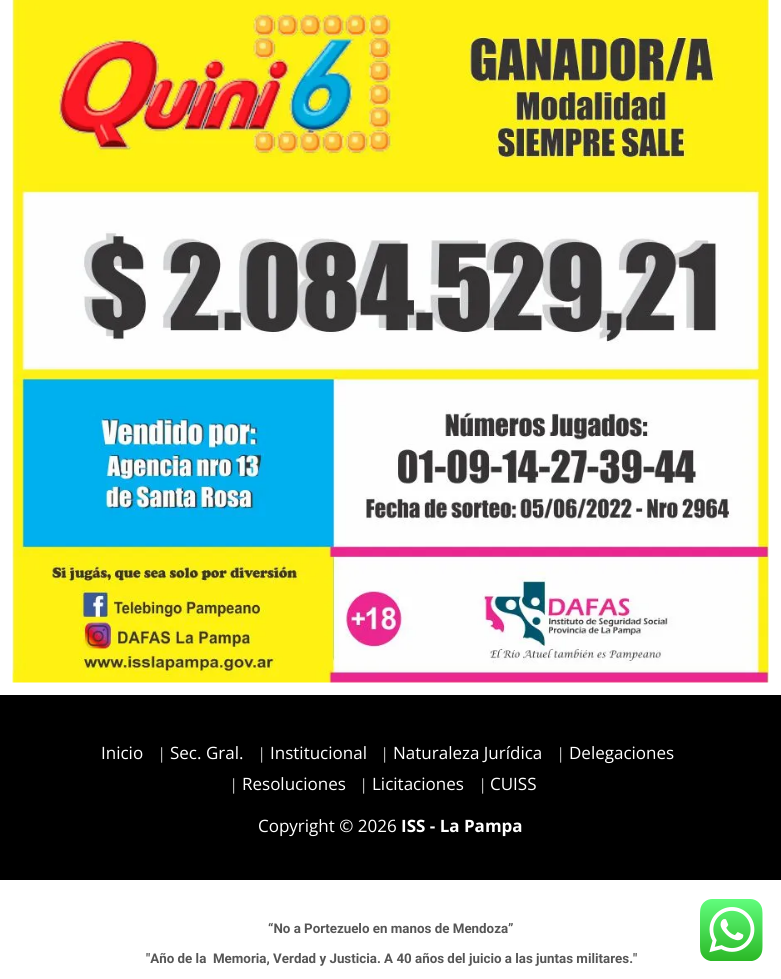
import math
import cairocffi as cairo

surface = cairo.ImageSurface(cairo.FORMAT_RGB24, 781, 979)
ctx = cairo.Context(surface)
options = cairo.FontOptions()
options.set_hint_metrics(cairo.HINT_METRICS_OFF)
options.set_hint_style(cairo.HINT_STYLE_NONE)
ctx.set_font_options(options)
ctx.set_miter_limit(4)


def rgb(r, g, b):
    ctx.set_source_rgb(r / 255, g / 255, b / 255)


def face(family, size, italic, bold):
    ctx.select_font_face(family, cairo.FONT_SLANT_ITALIC if italic else cairo.FONT_SLANT_NORMAL, cairo.FONT_WEIGHT_BOLD if bold else cairo.FONT_WEIGHT_NORMAL)
    ctx.set_font_size(size)


def label(x, y, s):
    ctx.move_to(x, y)
    ctx.show_text(s)


def rect(x, y, w, h):
    ctx.rectangle(x, y, w, h)
    ctx.fill()


def image(path, x, y, w, h):
    ctx.save()
    ctx.set_source_surface(cairo.ImageSurface.create_from_png(path), x, y)
    ctx.rectangle(x, y, w, h)
    ctx.fill()
    ctx.restore()


rgb(255, 255, 255)
ctx.paint()
image('image0.png', 12, 0, 757, 683)
rgb(0, 0, 0)
rect(0, 695, 781, 185)
face('Open Sans', 17, 0, 0)
rgb(255, 255, 255)
label(101, 759, 'Inicio')
face('Liberation Serif', 17, 0, 0)
label(160, 759, '|')
face('Open Sans', 17, 0, 0)
label(170, 759, 'Sec. Gral.')
face('Liberation Serif', 17, 0, 0)
label(260, 759, '|')
face('Open Sans', 17, 0, 0)
label(270, 759, 'Institucional')
face('Liberation Serif', 17, 0, 0)
label(383, 759, '|')
face('Open Sans', 17, 0, 0)
label(393, 759, 'Naturaleza Jurídica')
face('Liberation Serif', 17, 0, 0)
label(559, 759, '|')
face('Open Sans', 17, 0, 0)
label(569, 759, 'Delegaciones')
face('Liberation Serif', 17, 0, 0)
label(232, 790, '|')
face('Open Sans', 17, 0, 0)
label(242, 790, 'Resoluciones')
face('Liberation Serif', 17, 0, 0)
label(362, 790, '|')
face('Open Sans', 17, 0, 0)
label(372, 790, 'Licitaciones')
face('Liberation Serif', 17, 0, 0)
label(481, 790, '|')
face('Open Sans', 17, 0, 0)
label(490, 790, 'CUISS')
label(258, 832, 'Copyright © 2026')
face('Open Sans', 17, 0, 1)
label(401, 832, 'ISS - La Pampa')
face('Roboto', 13.35, 0, 1)
rgb(86, 86, 86)
label(268, 933, '“No a Portezuelo en manos de Mendoza”')
label(146, 963, '"Año de la  Memoria, Verdad y Justicia. A 40 años del juicio a las juntas militares."')
image('image1.png', 700, 899, 63, 62)
surface.write_to_png('render.png')
